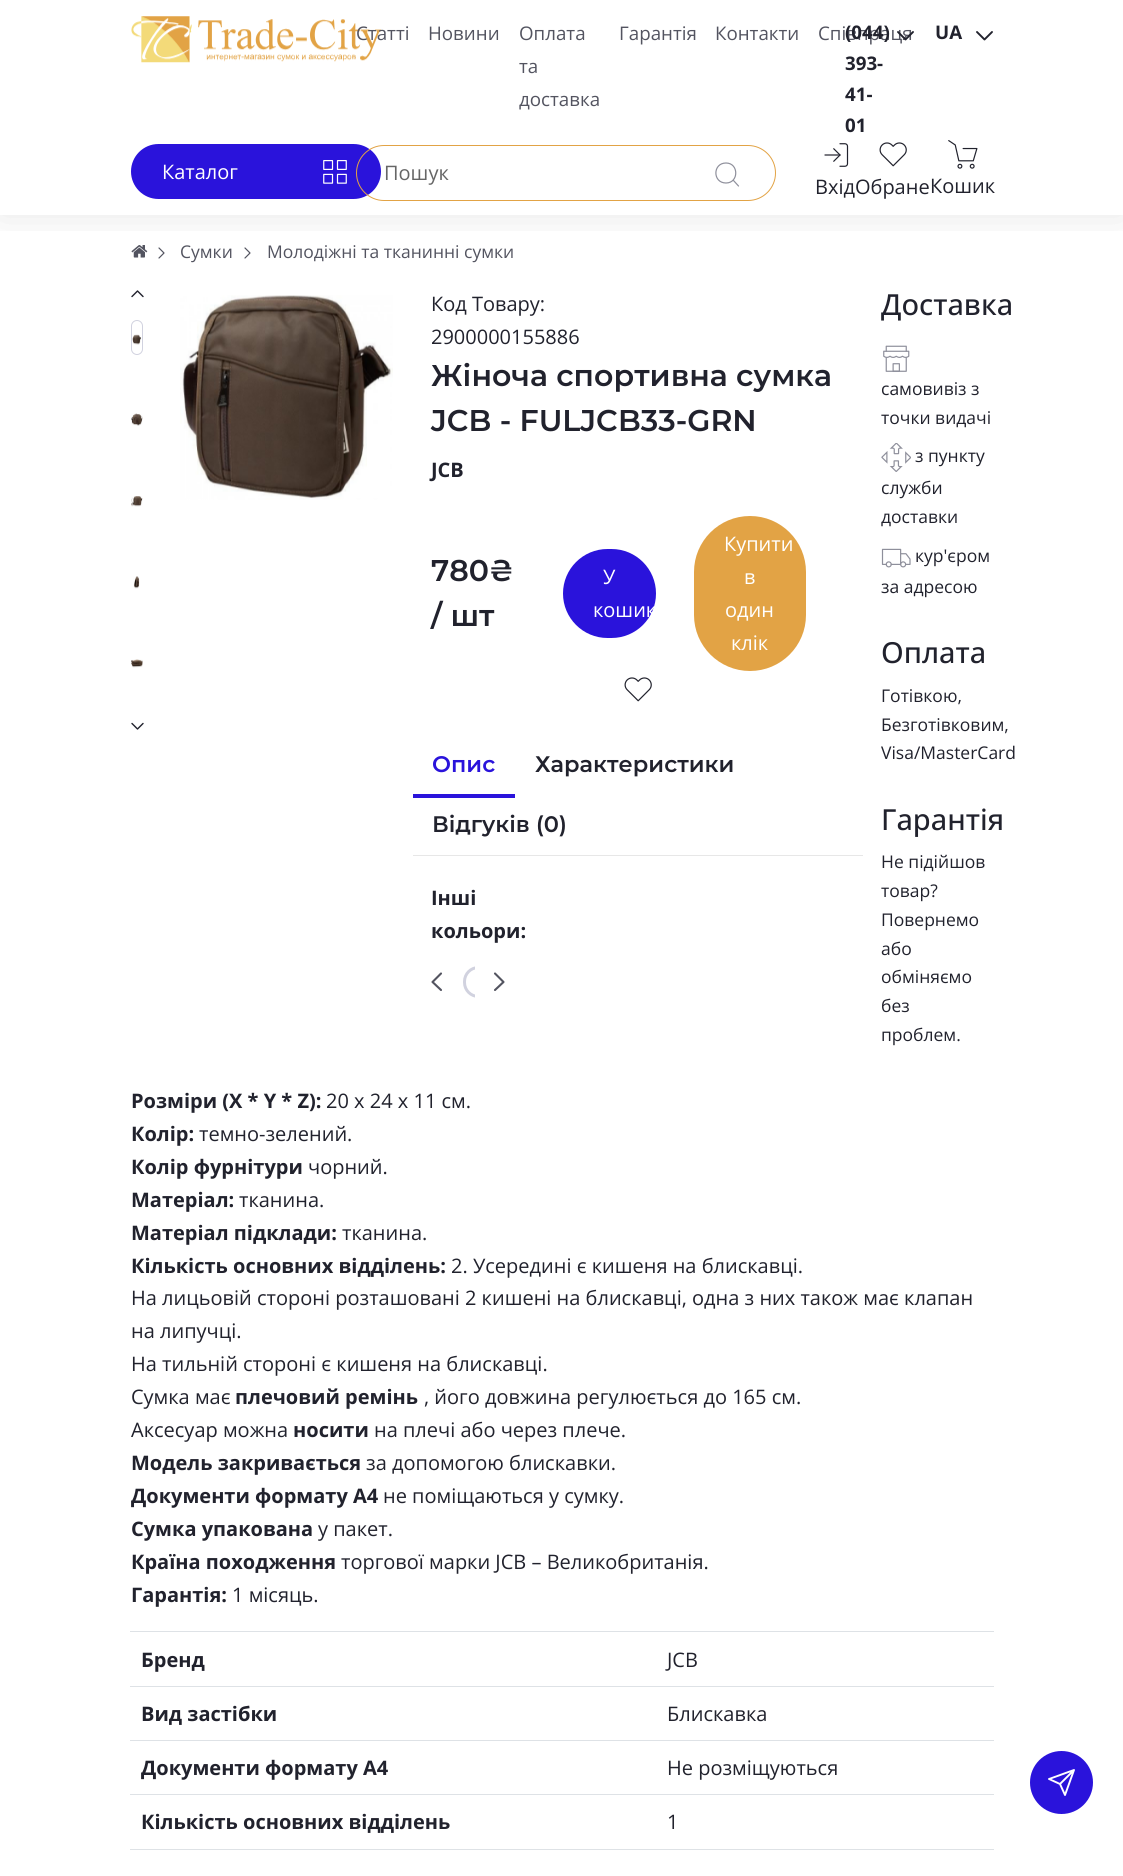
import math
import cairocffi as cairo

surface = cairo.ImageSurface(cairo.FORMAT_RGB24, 1123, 1876)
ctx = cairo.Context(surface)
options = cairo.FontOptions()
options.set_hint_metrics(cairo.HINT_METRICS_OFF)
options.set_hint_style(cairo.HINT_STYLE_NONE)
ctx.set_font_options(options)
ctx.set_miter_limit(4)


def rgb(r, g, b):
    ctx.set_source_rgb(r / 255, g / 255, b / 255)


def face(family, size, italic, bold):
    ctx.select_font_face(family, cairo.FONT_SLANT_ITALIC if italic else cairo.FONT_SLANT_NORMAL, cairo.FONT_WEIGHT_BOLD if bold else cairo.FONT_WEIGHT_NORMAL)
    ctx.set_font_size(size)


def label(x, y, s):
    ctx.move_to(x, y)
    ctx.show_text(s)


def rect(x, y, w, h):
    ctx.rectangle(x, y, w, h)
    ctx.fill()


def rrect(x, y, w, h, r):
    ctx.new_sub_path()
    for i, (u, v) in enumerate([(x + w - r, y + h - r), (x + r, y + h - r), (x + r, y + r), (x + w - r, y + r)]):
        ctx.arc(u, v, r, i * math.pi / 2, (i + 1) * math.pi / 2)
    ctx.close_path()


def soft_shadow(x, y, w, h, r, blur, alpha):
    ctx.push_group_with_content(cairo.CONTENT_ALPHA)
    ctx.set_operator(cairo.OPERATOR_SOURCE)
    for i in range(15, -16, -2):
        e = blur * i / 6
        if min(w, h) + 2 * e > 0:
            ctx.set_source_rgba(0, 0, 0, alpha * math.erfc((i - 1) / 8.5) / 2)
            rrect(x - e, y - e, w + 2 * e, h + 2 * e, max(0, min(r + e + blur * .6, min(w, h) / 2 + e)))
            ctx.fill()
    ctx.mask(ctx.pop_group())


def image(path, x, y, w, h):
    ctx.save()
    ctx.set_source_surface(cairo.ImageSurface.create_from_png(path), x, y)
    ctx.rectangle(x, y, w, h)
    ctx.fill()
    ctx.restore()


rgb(255, 255, 255)
ctx.paint()
image('image5.png', 131, 245, 17, 13)
ctx.new_path()
ctx.move_to(159, 258)
ctx.line_to(164, 253)
ctx.line_to(159, 248)
rgb(83, 84, 96)
ctx.set_line_width(1.2)
ctx.set_line_cap(cairo.LINE_CAP_ROUND)
ctx.set_line_join(cairo.LINE_JOIN_ROUND)
ctx.stroke()
ctx.new_path()
ctx.move_to(245, 258)
ctx.line_to(250, 253)
ctx.line_to(245, 248)
ctx.stroke()
ctx.save()
ctx.rectangle(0, 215, 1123, 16)
ctx.clip()
rgb(0, 0, 0)
soft_shadow(0, 0, 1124, 215, 0, 19, 0.1)
ctx.restore()
image('image0.png', 131, 16, 251, 47)
face('Open Sans', 18.75, 0, 0)
label(818, 40, 'Співпраця')
face('Open Sans', 18.75, 0, 1)
rgb(33, 34, 45)
label(845, 39, '(044)')
ctx.new_path()
ctx.move_to(898, 32)
ctx.line_to(905.5, 39.5)
ctx.line_to(913, 32)
ctx.set_line_width(1.9)
ctx.stroke()
label(845, 70, '393-')
label(845, 101, '41-')
label(845, 132, '01')
label(935, 39, 'UA')
ctx.new_path()
ctx.move_to(977, 32)
ctx.line_to(984.5, 39.5)
ctx.line_to(992, 32)
ctx.stroke()
face('Open Sans', 18.75, 0, 0)
rgb(83, 84, 96)
label(356, 40, 'Статті')
label(428, 40, 'Новини')
label(519, 40, 'Оплата')
label(519, 73, 'та')
label(519, 106, 'доставка')
label(619, 40, 'Гарантія')
label(715, 40, 'Контакти')
rgb(42, 19, 219)
rrect(131, 144, 250, 55, 27.5)
ctx.fill()
face('Open Sans', 20, 0, 0)
rgb(255, 255, 255)
label(162, 179, 'Каталог')
image('image1.png', 323, 160, 24, 24)
rrect(356.5, 145.5, 419, 55, 27.5)
rgb(226, 163, 69)
ctx.set_line_width(1)
ctx.set_line_cap(cairo.LINE_CAP_BUTT)
ctx.set_line_join(cairo.LINE_JOIN_MITER)
ctx.stroke()
rgb(102, 102, 102)
label(384, 180, 'Пошук')
ctx.new_path()
ctx.move_to(726, 183)
ctx.curve_to(739, 183, 739, 163, 726, 163)
ctx.curve_to(712.5, 163, 712.5, 183, 726, 183)
ctx.close_path()
ctx.move_to(738.5, 186)
ctx.line_to(733.5, 180.5)
rgb(142, 143, 155)
ctx.set_line_width(1.2)
ctx.set_line_cap(cairo.LINE_CAP_ROUND)
ctx.set_line_join(cairo.LINE_JOIN_ROUND)
ctx.stroke()
image('image2.png', 879, 142, 28, 25)
image('image3.png', 824, 143, 25, 24)
rgb(33, 34, 45)
label(815, 194, 'ВхідОбране')
image('image4.png', 948, 140, 30, 29)
label(930, 193, 'Кошик')
face('Open Sans', 17.5, 0, 0)
rgb(83, 84, 96)
label(180, 258, 'Сумки')
label(267, 258, 'Молодіжні та тканинні сумки')
ctx.new_path()
ctx.move_to(143, 296.5)
ctx.line_to(137.5, 291)
ctx.line_to(132, 296.5)
rgb(33, 34, 45)
ctx.set_line_width(1.4)
ctx.stroke()
rrect(131.5, 320.5, 11, 34, 5.5)
rgb(209, 210, 223)
ctx.set_line_width(1)
ctx.set_line_cap(cairo.LINE_CAP_BUTT)
ctx.set_line_join(cairo.LINE_JOIN_MITER)
ctx.stroke()
image('image6.png', 132, 334, 10, 11)
image('image7.png', 131, 413, 12, 13)
image('image8.png', 131, 496, 12, 11)
image('image9.png', 133, 576, 7, 13)
image('image10.png', 131, 659, 12, 9)
ctx.new_path()
ctx.move_to(132, 723.5)
ctx.line_to(137.5, 729)
ctx.line_to(143, 723.5)
rgb(33, 34, 45)
ctx.set_line_width(1.4)
ctx.set_line_cap(cairo.LINE_CAP_ROUND)
ctx.set_line_join(cairo.LINE_JOIN_ROUND)
ctx.stroke()
image('image11.png', 180, 295, 213, 205)
face('Open Sans', 20, 0, 0)
label(431, 311, 'Код Товару:')
label(431, 344, '2900000155886')
face('Montserrat SemiBold', 30, 0, 0)
label(431, 386, 'Жіноча спортивна сумка')
label(431, 431, 'JCB - FULJCB33-GRN')
face('Open Sans', 20, 0, 1)
label(431, 477, 'JCB')
face('Montserrat SemiBold', 30, 0, 0)
label(431, 581, '780₴')
label(431, 626, '/ шт')
rgb(42, 19, 219)
rrect(563, 549, 93, 89, 44.5)
ctx.fill()
face('Open Sans', 20, 0, 0)
rgb(255, 255, 255)
label(603, 584, 'У')
label(593, 617, 'кошик')
rgb(226, 163, 69)
rrect(694, 516, 112, 155, 56)
ctx.fill()
rgb(255, 255, 255)
label(724, 551, 'Купити')
label(744, 584, 'в')
label(725, 617, 'один')
label(731, 650, 'клік')
image('image12.png', 624, 677, 28, 25)
rgb(231, 231, 231)
rect(413, 855, 450, 1)
rgb(42, 19, 219)
rect(413, 794, 102, 4)
face('Montserrat SemiBold', 22.5, 0, 0)
label(432, 772, 'Опис')
rgb(33, 34, 45)
label(535, 772, 'Характеристики')
label(432, 832, 'Відгуків (0)')
face('Open Sans', 20, 0, 1)
label(431, 905, 'Інші')
label(431, 938, 'кольори:')
ctx.save()
ctx.rectangle(463, 956, 12, 42)
ctx.clip()
rrect(464.5, 967.5, 28, 29, 14)
rgb(209, 210, 223)
ctx.set_line_width(3)
ctx.set_line_cap(cairo.LINE_CAP_BUTT)
ctx.set_line_join(cairo.LINE_JOIN_MITER)
ctx.stroke()
ctx.restore()
ctx.new_path()
ctx.move_to(441, 990)
ctx.line_to(432.5, 982)
ctx.line_to(441, 973.5)
rgb(83, 84, 96)
ctx.set_line_width(2.1)
ctx.stroke()
ctx.new_path()
ctx.move_to(495, 990)
ctx.line_to(503.5, 982)
ctx.line_to(495, 973.5)
ctx.stroke()
face('Open Sans Medium', 29, 0, 0)
rgb(33, 34, 45)
label(881, 315, 'Доставка')
image('image13.png', 883, 345, 27, 27)
face('Open Sans', 17.5, 0, 0)
label(881, 395, 'самовивіз з')
label(881, 424, 'точки видачі')
image('image14.png', 881, 443, 30, 29)
label(915, 462, 'з пункту')
label(881, 494, 'служби')
label(881, 523, 'доставки')
image('image15.png', 881, 548, 30, 20)
label(915, 562, 'кур\'єром')
label(881, 593, 'за адресою')
face('Open Sans Medium', 29, 0, 0)
label(881, 663, 'Оплата')
face('Open Sans', 17.5, 0, 0)
label(881, 702, 'Готівкою,')
label(881, 731, 'Безготівковим,')
label(881, 759, 'Visa/MasterCard')
face('Open Sans Medium', 29, 0, 0)
label(881, 830, 'Гарантія')
face('Open Sans', 17.5, 0, 0)
label(881, 868, 'Не підійшов')
label(881, 897, 'товар?')
label(881, 926, 'Повернемо')
label(881, 955, 'або')
label(881, 983, 'обміняємо')
label(881, 1012, 'без')
label(881, 1041, 'проблем.')
face('Open Sans', 20, 0, 1)
label(131, 1108, 'Розміри (X * Y * Z):')
face('Open Sans', 20, 0, 0)
label(326, 1108, '20 х 24 х 11 см.')
face('Open Sans', 20, 0, 1)
label(131, 1141, 'Колір:')
face('Open Sans', 20, 0, 0)
label(199, 1141, 'темно-зелений.')
face('Open Sans', 20, 0, 1)
label(131, 1174, 'Колір фурнітури')
face('Open Sans', 20, 0, 0)
label(308, 1174, 'чорний.')
face('Open Sans', 20, 0, 1)
label(131, 1207, 'Матеріал:')
face('Open Sans', 20, 0, 0)
label(239, 1207, 'тканина.')
face('Open Sans', 20, 0, 1)
label(131, 1240, 'Матеріал підклади:')
face('Open Sans', 20, 0, 0)
label(342, 1240, 'тканина.')
face('Open Sans', 20, 0, 1)
label(131, 1273, 'Кількість основних відділень:')
face('Open Sans', 20, 0, 0)
label(451, 1273, '2. Усередині є кишеня на блискавці.')
label(131, 1305, 'На лицьовій стороні розташовані 2 кишені на блискавці, одна з них також має клапан')
label(131, 1338, 'на липучці.')
label(131, 1371, 'На тильній стороні є кишеня на блискавці.')
label(131, 1404, 'Сумка має')
face('Open Sans', 20, 0, 1)
label(235, 1404, 'плечовий ремінь')
face('Open Sans', 20, 0, 0)
label(424, 1404, ', його довжина регулюється до 165 см.')
label(131, 1437, 'Аксесуар можна')
face('Open Sans', 20, 0, 1)
label(293, 1437, 'носити')
face('Open Sans', 20, 0, 0)
label(374, 1437, 'на плечі або через плече.')
face('Open Sans', 20, 0, 1)
label(131, 1470, 'Модель закривається')
face('Open Sans', 20, 0, 0)
label(366, 1470, 'за допомогою блискавки.')
face('Open Sans', 20, 0, 1)
label(131, 1503, 'Документи формату А4')
face('Open Sans', 20, 0, 0)
label(383, 1503, 'не поміщаються у сумку.')
face('Open Sans', 20, 0, 1)
label(131, 1536, 'Сумка упакована')
face('Open Sans', 20, 0, 0)
label(318, 1536, 'у пакет.')
face('Open Sans', 20, 0, 1)
label(131, 1569, 'Країна походження')
face('Open Sans', 20, 0, 0)
label(341, 1569, 'торгової марки JCB – Великобританія.')
face('Open Sans', 20, 0, 1)
label(131, 1602, 'Гарантія:')
face('Open Sans', 20, 0, 0)
label(232, 1602, '1 місяць.')
rgb(222, 226, 230)
rect(130, 1631, 864, 1)
face('Open Sans', 20, 0, 1)
rgb(33, 34, 45)
label(141, 1667, 'Бренд')
rgb(222, 226, 230)
rect(130, 1686, 864, 1)
face('Open Sans', 20, 0, 0)
rgb(33, 34, 45)
label(667, 1667, 'JCB')
face('Open Sans', 20, 0, 1)
label(141, 1721, 'Вид застібки')
rgb(222, 226, 230)
rect(130, 1740, 864, 1)
face('Open Sans', 20, 0, 0)
rgb(33, 34, 45)
label(667, 1721, 'Блискавка')
face('Open Sans', 20, 0, 1)
label(141, 1775, 'Документи формату А4')
rgb(222, 226, 230)
rect(130, 1794, 864, 1)
face('Open Sans', 20, 0, 0)
rgb(33, 34, 45)
label(667, 1775, 'Не розміщуються')
face('Open Sans', 20, 0, 1)
label(141, 1829, 'Кількість основних відділень')
rgb(222, 226, 230)
rect(130, 1849, 864, 1)
face('Open Sans', 20, 0, 0)
rgb(33, 34, 45)
label(667, 1829, '1')
rgb(42, 19, 219)
ctx.new_path()
ctx.arc(1061.5, 1782.5, 31.5, 0, 2 * math.pi)
ctx.fill()
ctx.new_path()
ctx.move_to(1074, 1770)
ctx.line_to(1060, 1784)
ctx.move_to(1074, 1770)
ctx.line_to(1065, 1795)
ctx.line_to(1060, 1784)
ctx.line_to(1049, 1779)
ctx.close_path()
rgb(255, 255, 255)
ctx.set_line_width(1.9)
ctx.stroke()
surface.write_to_png('render.png')
